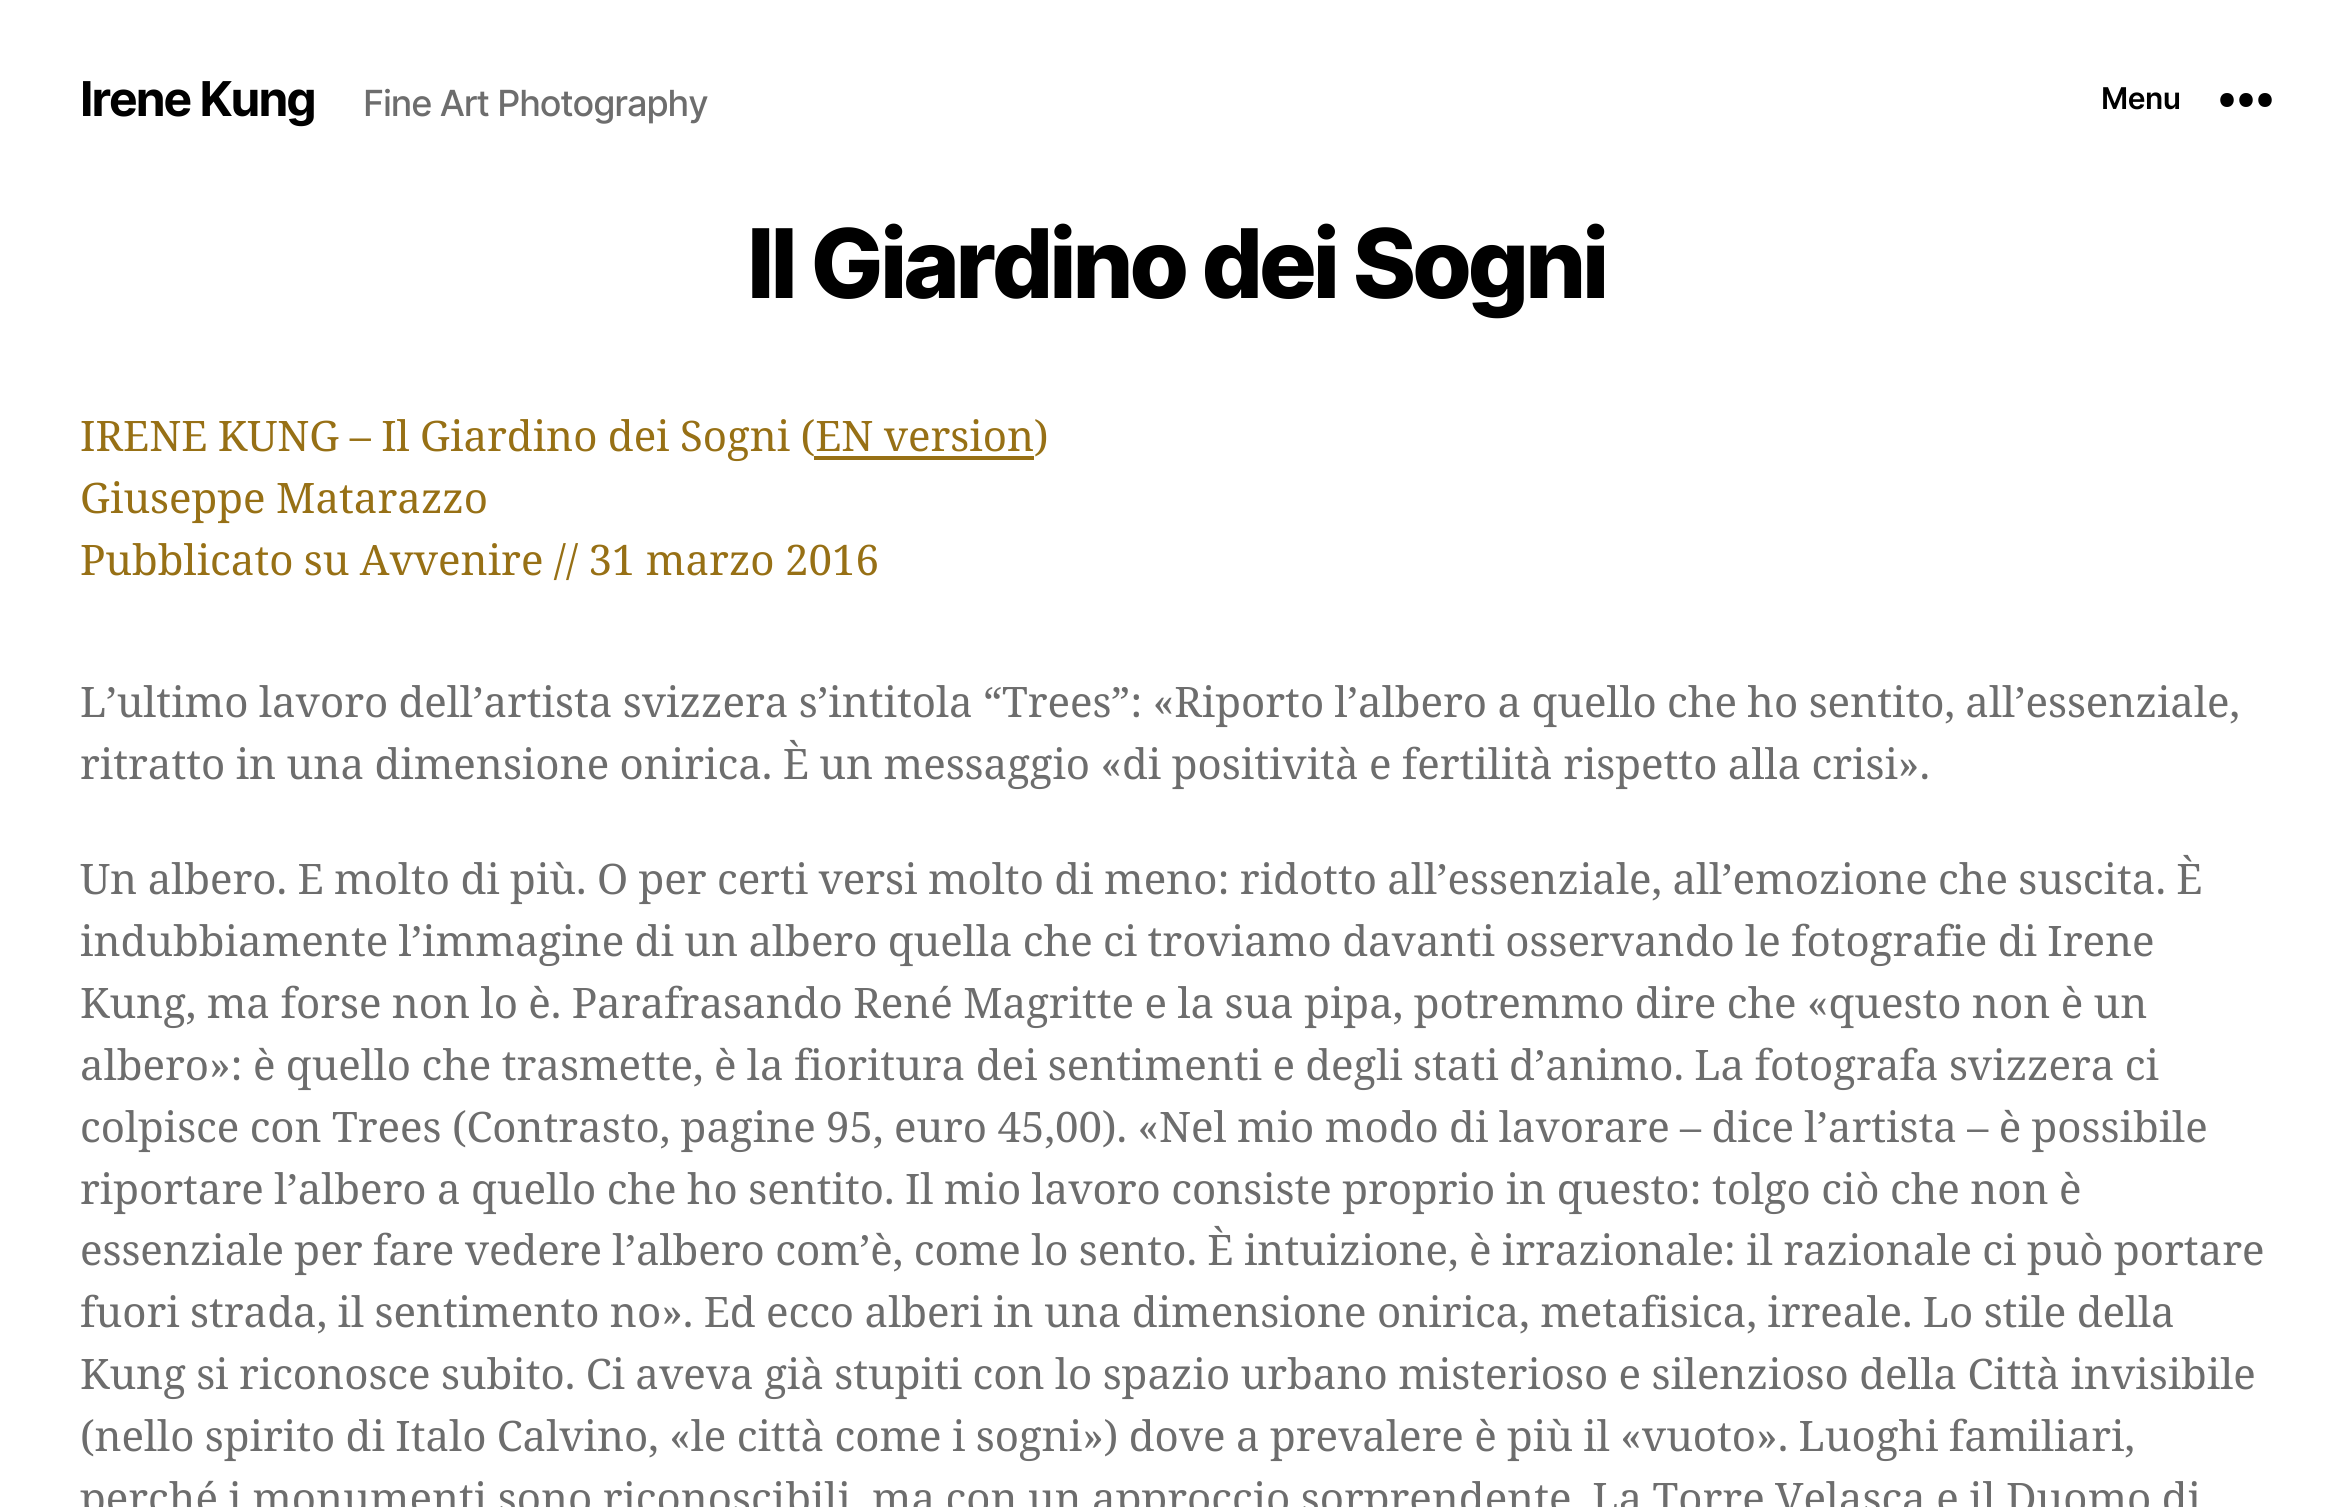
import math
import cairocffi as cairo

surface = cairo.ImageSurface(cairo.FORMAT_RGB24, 2352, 1507)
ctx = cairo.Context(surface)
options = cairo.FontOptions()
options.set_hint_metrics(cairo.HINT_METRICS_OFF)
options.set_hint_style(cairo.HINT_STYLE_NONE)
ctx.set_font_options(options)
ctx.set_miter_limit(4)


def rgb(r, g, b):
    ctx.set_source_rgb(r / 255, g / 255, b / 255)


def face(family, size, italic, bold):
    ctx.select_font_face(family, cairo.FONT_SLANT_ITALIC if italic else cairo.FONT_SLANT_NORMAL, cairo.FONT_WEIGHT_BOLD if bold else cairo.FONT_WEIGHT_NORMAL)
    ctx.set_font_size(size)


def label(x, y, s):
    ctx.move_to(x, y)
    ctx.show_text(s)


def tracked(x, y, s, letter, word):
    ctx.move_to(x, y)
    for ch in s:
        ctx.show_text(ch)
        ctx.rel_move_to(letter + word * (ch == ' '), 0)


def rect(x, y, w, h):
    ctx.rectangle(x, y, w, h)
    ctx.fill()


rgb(255, 255, 255)
ctx.paint()
face('Inter', 48, 0, 1)
rgb(0, 0, 0)
tracked(80, 116, 'Irene Kung', -2, 0)
face('Inter Medium', 36, 0, 0)
rgb(109, 109, 109)
tracked(363, 116, 'Fine Art Photography', -1.1, 0)
face('Inter SemiBold', 30, 0, 0)
rgb(0, 0, 0)
tracked(2101, 109, 'Menu', -0.5, 0)
ctx.set_fill_rule(cairo.FILL_RULE_EVEN_ODD)
ctx.new_path()
ctx.move_to(2227, 107)
ctx.curve_to(2218, 107, 2218, 93, 2227, 93)
ctx.curve_to(2236, 93, 2236, 107, 2227, 107)
ctx.close_path()
ctx.move_to(2246, 107)
ctx.curve_to(2237, 107, 2237, 93, 2246, 93)
ctx.curve_to(2255, 93, 2255, 107, 2246, 107)
ctx.close_path()
ctx.move_to(2265, 107)
ctx.curve_to(2256, 107, 2256, 93, 2265, 93)
ctx.curve_to(2274, 93, 2274, 107, 2265, 107)
ctx.close_path()
ctx.fill()
face('Inter ExtraBold', 96, 0, 0)
tracked(747, 298, 'Il Giardino dei Sogni', -4, 0)
face('Noto Serif', 42, 0, 0)
rgb(151, 112, 21)
tracked(80, 451, 'IRENE KUNG – Il Giardino dei Sogni (EN version', 0, -0.5)
label(1034, 451, ')')
rect(814, 456, 220, 4)
tracked(80, 513, 'Giuseppe Matarazzo', 0, -0.5)
tracked(80, 575, 'Pubblicato su Avvenire // 31 marzo 2016', 0, -0.5)
rgb(109, 109, 109)
tracked(80, 717, 'L’ultimo lavoro dell’artista svizzera s’intitola “Trees”: «Riporto l’albero a quello che ho sentito, all’essenziale,', 0, -0.5)
tracked(80, 779, 'ritratto in una dimensione onirica. È un messaggio «di positività e fertilità rispetto alla crisi».', 0, -0.5)
tracked(80, 894, 'Un albero. E molto di più. O per certi versi molto di meno: ridotto all’essenziale, all’emozione che suscita. È', 0, -0.5)
tracked(80, 956, 'indubbiamente l’immagine di un albero quella che ci troviamo davanti osservando le fotografie di Irene', 0, -0.5)
tracked(80, 1018, 'Kung, ma forse non lo è. Parafrasando René Magritte e la sua pipa, potremmo dire che «questo non è un', 0, -0.5)
tracked(80, 1080, 'albero»: è quello che trasmette, è la fioritura dei sentimenti e degli stati d’animo. La fotografa svizzera ci', 0, -0.5)
tracked(80, 1142, 'colpisce con Trees (Contrasto, pagine 95, euro 45,00). «Nel mio modo di lavorare – dice l’artista – è possibile', 0, -0.5)
tracked(80, 1204, 'riportare l’albero a quello che ho sentito. Il mio lavoro consiste proprio in questo: tolgo ciò che non è', 0, -0.5)
tracked(80, 1265, 'essenziale per fare vedere l’albero com’è, come lo sento. È intuizione, è irrazionale: il razionale ci può portare', 0, -0.5)
tracked(80, 1327, 'fuori strada, il sentimento no». Ed ecco alberi in una dimensione onirica, metafisica, irreale. Lo stile della', 0, -0.5)
tracked(80, 1389, 'Kung si riconosce subito. Ci aveva già stupiti con lo spazio urbano misterioso e silenzioso della Città invisibile', 0, -0.5)
tracked(80, 1451, '(nello spirito di Italo Calvino, «le città come i sogni») dove a prevalere è più il «vuoto». Luoghi familiari,', 0, -0.5)
tracked(80, 1513, 'perché i monumenti sono riconoscibili, ma con un approccio sorprendente. La Torre Velasca e il Duomo di', 0, -0.5)
surface.write_to_png('render.png')
